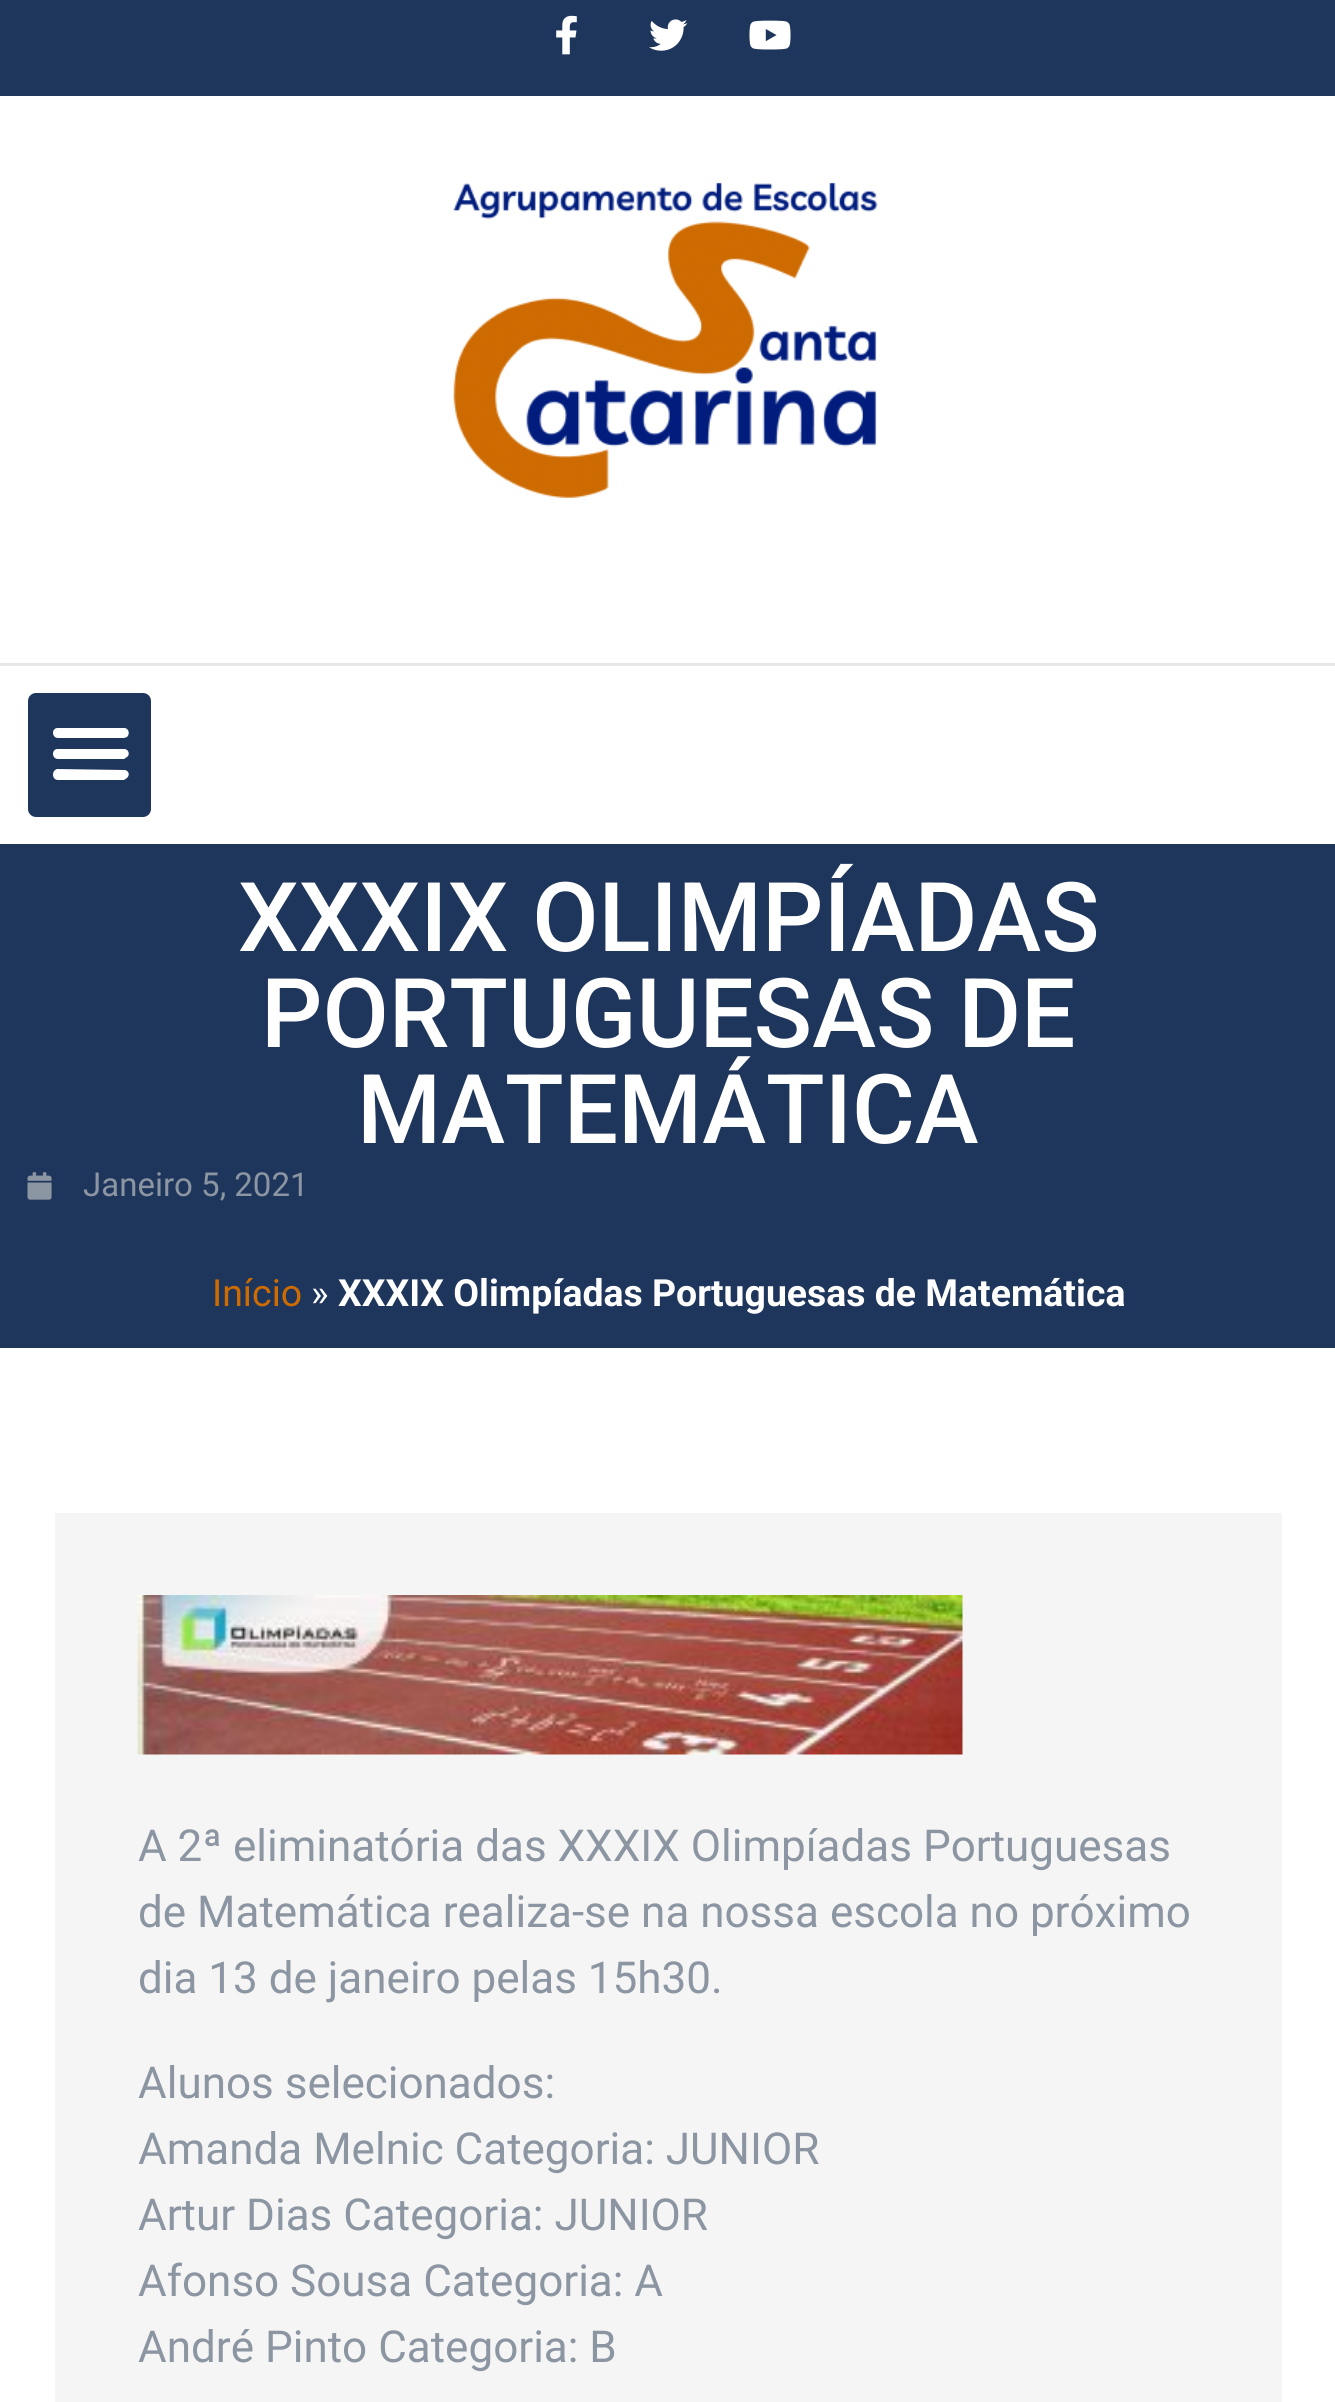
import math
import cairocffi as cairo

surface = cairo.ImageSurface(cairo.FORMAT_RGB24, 1335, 2402)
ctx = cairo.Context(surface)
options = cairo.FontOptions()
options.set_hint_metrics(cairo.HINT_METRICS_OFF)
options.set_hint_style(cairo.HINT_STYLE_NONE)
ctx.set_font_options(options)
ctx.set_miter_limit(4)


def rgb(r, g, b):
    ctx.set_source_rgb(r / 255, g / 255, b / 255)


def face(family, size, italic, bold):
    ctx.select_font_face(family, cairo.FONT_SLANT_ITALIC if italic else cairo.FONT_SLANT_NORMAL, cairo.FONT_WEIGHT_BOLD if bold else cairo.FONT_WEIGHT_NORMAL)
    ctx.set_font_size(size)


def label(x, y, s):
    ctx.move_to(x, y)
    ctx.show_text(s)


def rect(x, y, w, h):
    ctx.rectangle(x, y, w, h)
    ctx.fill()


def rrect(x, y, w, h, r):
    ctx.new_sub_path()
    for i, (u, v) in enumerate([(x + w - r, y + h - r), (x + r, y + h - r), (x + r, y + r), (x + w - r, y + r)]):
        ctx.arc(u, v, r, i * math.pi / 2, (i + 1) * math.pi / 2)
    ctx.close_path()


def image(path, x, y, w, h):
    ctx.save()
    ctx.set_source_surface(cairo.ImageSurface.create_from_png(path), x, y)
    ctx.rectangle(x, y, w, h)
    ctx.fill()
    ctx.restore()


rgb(255, 255, 255)
ctx.paint()
rgb(31, 54, 92)
rect(0, 0, 1335, 96)
image('image0.png', 556, 15, 21, 40)
image('image1.png', 649, 19, 39, 32)
image('image2.png', 749, 20, 42, 30)
rgb(231, 231, 231)
rect(0, 663, 1335, 3)
image('image3.png', 453, 182, 425, 316)
rgb(31, 54, 92)
rrect(28, 693, 123, 124, 8)
ctx.fill()
rgb(255, 255, 255)
ctx.new_path()
ctx.move_to(58, 738)
ctx.line_to(124, 738)
ctx.line_to(127, 737)
ctx.curve_to(130, 734, 129, 729, 125, 728)
ctx.line_to(57, 728)
ctx.curve_to(51, 729, 52, 738, 58, 738)
ctx.close_path()
ctx.move_to(58, 759)
ctx.line_to(124, 759)
ctx.line_to(127, 757)
ctx.curve_to(130, 755, 129, 750, 125, 749)
ctx.line_to(57, 749)
ctx.curve_to(51, 750, 52, 759, 58, 759)
ctx.close_path()
ctx.move_to(58, 780)
ctx.line_to(124, 780)
ctx.line_to(127, 778)
ctx.curve_to(130, 775, 129, 771, 125, 770)
ctx.line_to(57, 769)
ctx.curve_to(51, 771, 52, 780, 58, 780)
ctx.close_path()
ctx.fill()
rgb(31, 54, 92)
rect(0, 844, 1335, 504)
face('Roboto Medium', 96.25, 0, 0)
rgb(255, 255, 255)
label(238, 951, 'XXXIX OLIMPÍADAS')
label(261, 1047, 'PORTUGUESAS DE')
label(357, 1143, 'MATEMÁTICA')
image('image4.png', 27, 1172, 25, 28)
face('Roboto', 33, 0, 0)
rgb(140, 149, 162)
label(83, 1196, 'Janeiro 5, 2021')
face('Roboto', 37.4, 0, 0)
rgb(206, 107, 1)
label(212, 1306, 'Início')
rgb(255, 255, 255)
label(311, 1306, '»')
face('Roboto', 37.4, 0, 1)
label(338, 1306, 'XXXIX Olimpíadas Portuguesas de Matemática')
rgb(245, 245, 245)
rect(55, 1513, 1227, 889)
image('image5.png', 137, 1595, 826, 160)
face('Roboto', 44, 0, 0)
rgb(140, 149, 162)
label(138, 1861, 'A 2ª eliminatória das XXXIX Olimpíadas Portuguesas')
label(138, 1927, 'de Matemática realiza-se na nossa escola no próximo')
label(138, 1993, 'dia 13 de janeiro pelas 15h30.')
label(138, 2098, 'Alunos selecionados:')
label(138, 2164, 'Amanda Melnic Categoria: JUNIOR')
label(138, 2230, 'Artur Dias Categoria: JUNIOR')
label(138, 2296, 'Afonso Sousa Categoria: A')
label(138, 2362, 'André Pinto Categoria: B')
surface.write_to_png('render.png')
